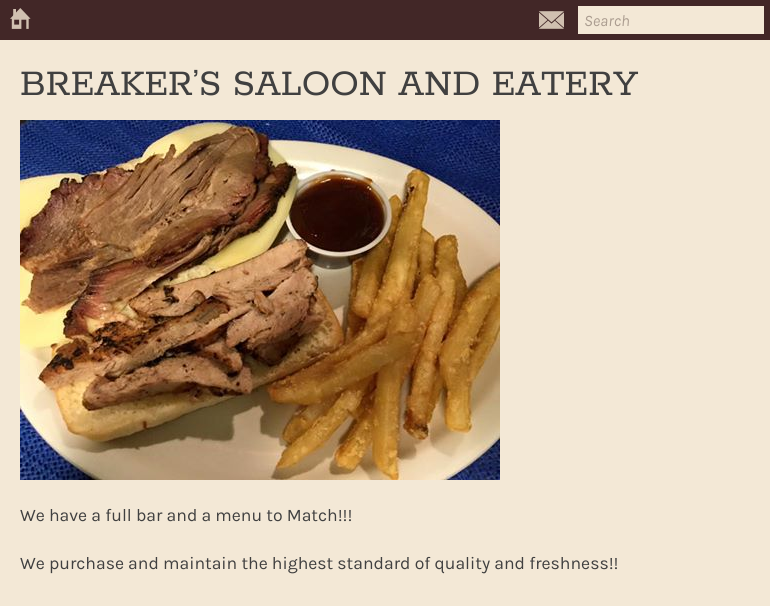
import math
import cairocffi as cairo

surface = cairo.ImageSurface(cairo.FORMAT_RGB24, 770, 606)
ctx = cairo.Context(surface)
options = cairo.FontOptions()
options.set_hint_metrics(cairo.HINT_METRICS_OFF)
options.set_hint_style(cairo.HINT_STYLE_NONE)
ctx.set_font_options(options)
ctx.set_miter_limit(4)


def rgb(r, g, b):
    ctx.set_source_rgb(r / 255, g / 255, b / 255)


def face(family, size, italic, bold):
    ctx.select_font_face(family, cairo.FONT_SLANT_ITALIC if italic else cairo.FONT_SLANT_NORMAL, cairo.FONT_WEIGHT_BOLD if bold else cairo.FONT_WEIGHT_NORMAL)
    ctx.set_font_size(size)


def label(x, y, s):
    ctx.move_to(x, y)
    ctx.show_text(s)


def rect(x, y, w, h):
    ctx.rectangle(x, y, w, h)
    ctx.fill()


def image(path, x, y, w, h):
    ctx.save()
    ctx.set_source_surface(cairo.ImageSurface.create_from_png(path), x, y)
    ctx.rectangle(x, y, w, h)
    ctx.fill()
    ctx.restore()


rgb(243, 232, 214)
ctx.paint()
rgb(66, 39, 39)
rect(0, 0, 770, 40)
image('image0.png', 10, 8, 21, 21)
image('image1.png', 539, 11, 25, 18)
rgb(243, 232, 214)
rect(578, 6, 186, 28)
face('Karla', 16, 1, 0)
rgb(171, 157, 144)
label(584, 26, 'Search')
face('Rokkitt', 40, 0, 0)
rgb(64, 64, 64)
label(20, 95, 'BREAKER’S SALOON AND EATERY')
image('image2.png', 20, 120, 480, 360)
face('Karla', 17.6, 0, 0)
label(20, 521, 'We have a full bar and a menu to Match!!!')
label(20, 569, 'We purchase and maintain the highest standard of quality and freshness!!')
surface.write_to_png('render.png')
